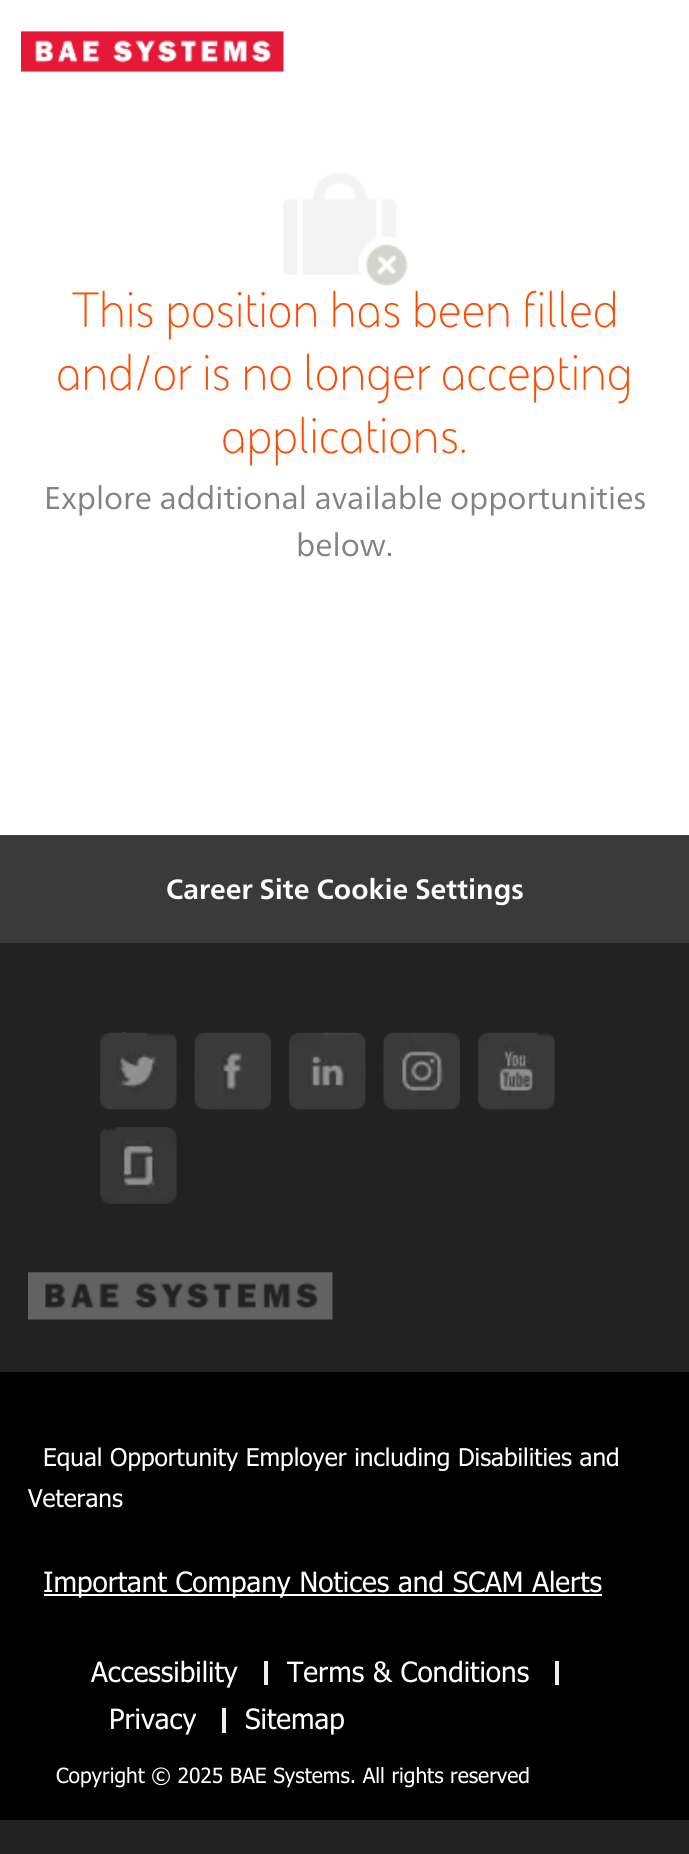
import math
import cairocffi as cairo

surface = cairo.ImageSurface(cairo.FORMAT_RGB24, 689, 1854)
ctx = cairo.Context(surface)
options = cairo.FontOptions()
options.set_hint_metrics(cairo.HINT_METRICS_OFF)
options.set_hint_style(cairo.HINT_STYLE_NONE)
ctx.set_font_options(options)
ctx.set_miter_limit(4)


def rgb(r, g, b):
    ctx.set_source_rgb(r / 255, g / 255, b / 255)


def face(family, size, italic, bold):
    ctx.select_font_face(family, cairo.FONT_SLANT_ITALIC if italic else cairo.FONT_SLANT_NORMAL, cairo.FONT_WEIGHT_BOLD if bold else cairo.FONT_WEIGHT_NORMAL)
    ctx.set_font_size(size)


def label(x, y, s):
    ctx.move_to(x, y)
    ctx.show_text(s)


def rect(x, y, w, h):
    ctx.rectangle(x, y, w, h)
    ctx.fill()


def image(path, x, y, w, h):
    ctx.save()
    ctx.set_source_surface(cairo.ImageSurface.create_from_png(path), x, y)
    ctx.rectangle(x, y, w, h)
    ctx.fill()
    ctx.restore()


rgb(255, 255, 255)
ctx.paint()
image('image0.png', 21, 31, 263, 41)
image('image1.png', 283, 172, 125, 114)
face('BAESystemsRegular', 50.4, 0, 0)
rgb(252, 76, 2)
label(72, 327, 'This position has been filled')
label(56, 390, 'and/or is no longer accepting')
label(221, 453, 'applications.')
face('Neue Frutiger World', 31.5, 0, 0)
rgb(130, 130, 130)
label(44, 509, 'Explore additional available opportunities')
label(296, 556, 'below.')
rgb(58, 58, 58)
rect(0, 835, 689, 108)
face('Neue Frutiger World', 28, 0, 1)
rgb(255, 255, 255)
label(166, 899, 'Career Site Cookie Settings')
rgb(34, 34, 34)
rect(0, 943, 689, 911)
image('image2.png', 100, 1032, 77, 78)
image('image3.png', 137, 1069, 40, 41)
image('image4.png', 194, 1032, 77, 78)
image('image5.png', 194, 1069, 40, 41)
image('image6.png', 289, 1032, 77, 78)
image('image7.png', 325, 1032, 41, 78)
image('image8.png', 383, 1032, 77, 78)
image('image9.png', 383, 1032, 40, 78)
image('image10.png', 478, 1032, 77, 78)
image('image11.png', 554, 1069, 1, 4)
image('image12.png', 100, 1127, 77, 77)
image('image13.png', 176, 1164, 1, 3)
image('image14.png', 28, 1272, 305, 48)
rgb(0, 0, 0)
rect(0, 1372, 689, 448)
face('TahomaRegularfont', 24.5, 0, 0)
rgb(255, 255, 255)
label(43, 1466, 'Equal Opportunity Employer including Disabilities and')
label(28, 1507, 'Veterans')
rect(44, 1594, 558, 2)
face('TahomaRegularfont', 28, 0, 0)
label(43, 1592, 'Important Company Notices and SCAM Alerts')
label(91, 1682, 'Accessibility')
rgb(239, 239, 239)
rect(264, 1661, 4, 24)
rgb(255, 255, 255)
label(287, 1682, 'Terms & Conditions')
rgb(239, 239, 239)
rect(555, 1661, 4, 24)
rgb(255, 255, 255)
label(109, 1729, 'Privacy')
rgb(239, 239, 239)
rect(222, 1708, 4, 25)
rgb(255, 255, 255)
label(245, 1729, 'Sitemap')
face('TahomaRegularfont', 21, 0, 0)
label(56, 1783, 'Copyright © 2025 BAE Systems. All rights reserved')
surface.write_to_png('render.png')
